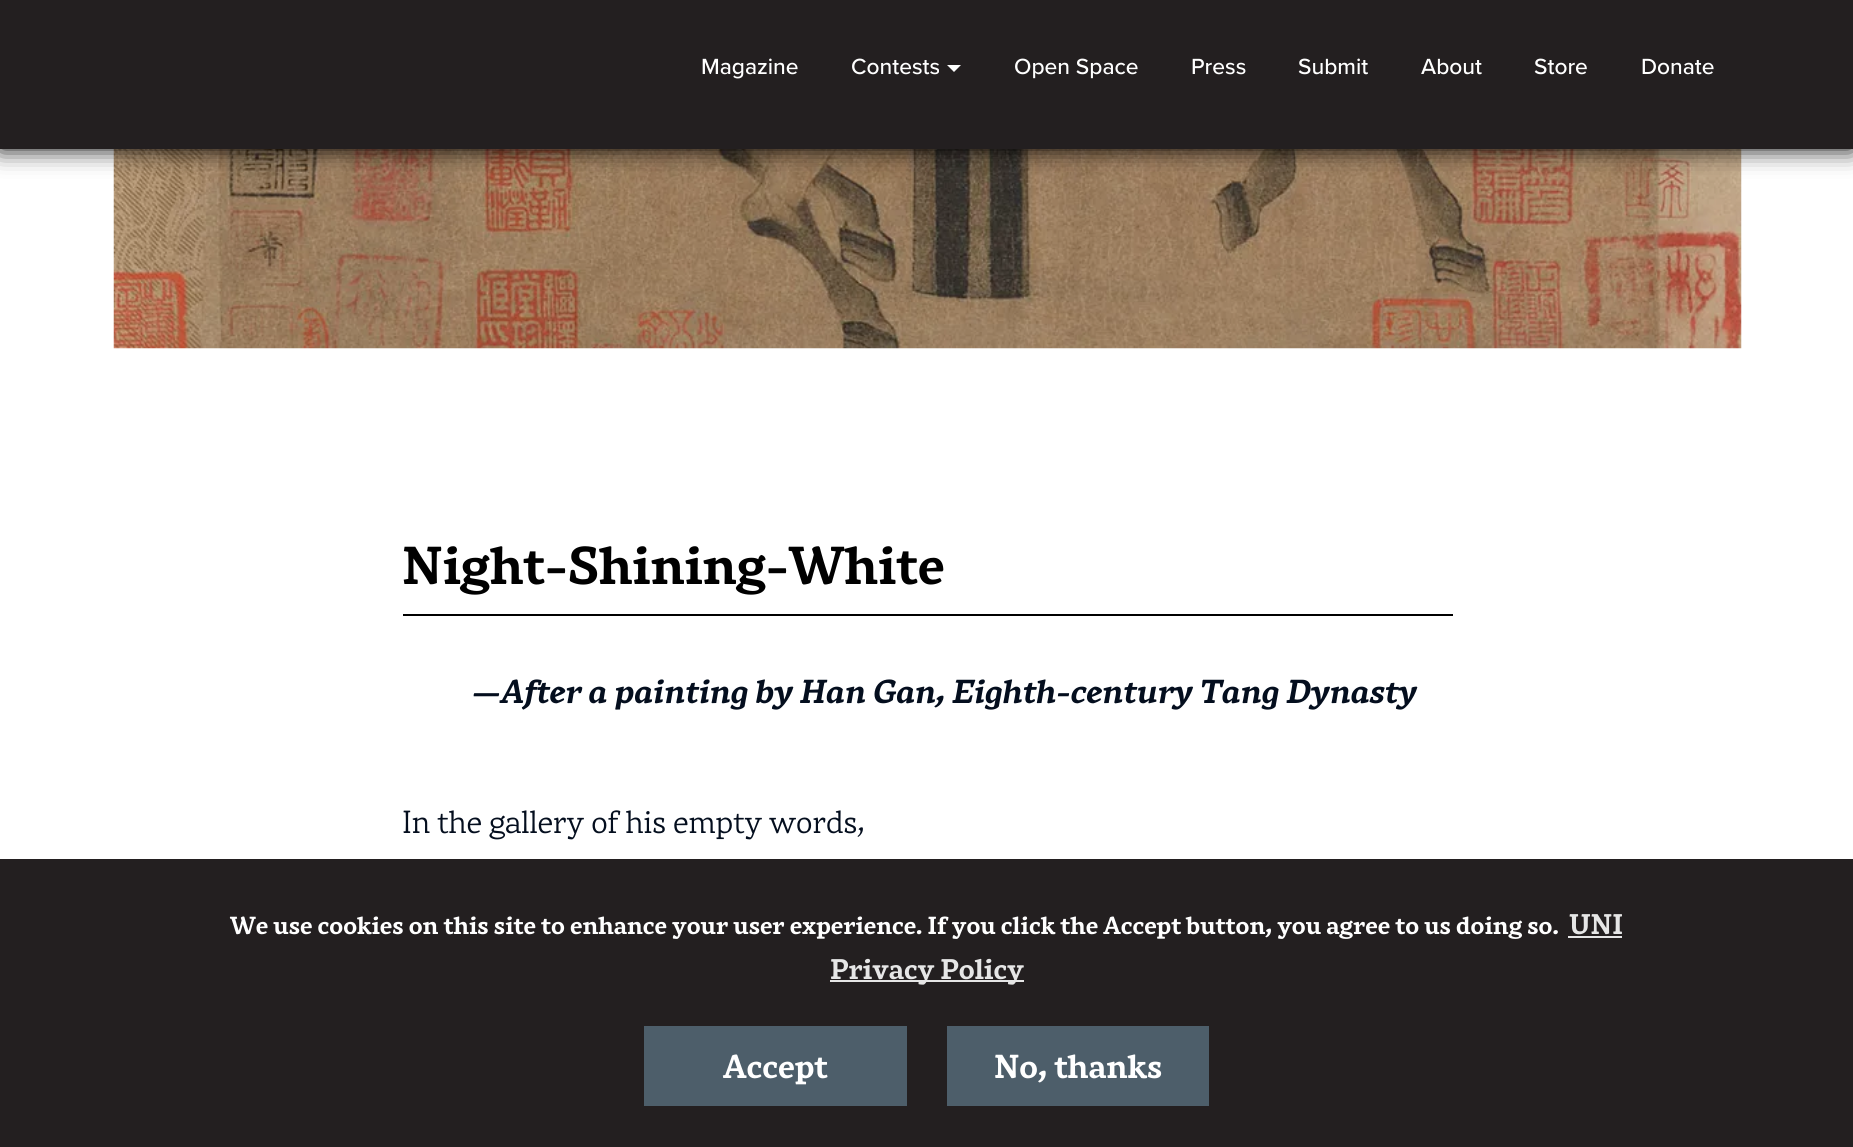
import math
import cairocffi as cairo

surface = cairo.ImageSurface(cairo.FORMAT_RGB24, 1853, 1147)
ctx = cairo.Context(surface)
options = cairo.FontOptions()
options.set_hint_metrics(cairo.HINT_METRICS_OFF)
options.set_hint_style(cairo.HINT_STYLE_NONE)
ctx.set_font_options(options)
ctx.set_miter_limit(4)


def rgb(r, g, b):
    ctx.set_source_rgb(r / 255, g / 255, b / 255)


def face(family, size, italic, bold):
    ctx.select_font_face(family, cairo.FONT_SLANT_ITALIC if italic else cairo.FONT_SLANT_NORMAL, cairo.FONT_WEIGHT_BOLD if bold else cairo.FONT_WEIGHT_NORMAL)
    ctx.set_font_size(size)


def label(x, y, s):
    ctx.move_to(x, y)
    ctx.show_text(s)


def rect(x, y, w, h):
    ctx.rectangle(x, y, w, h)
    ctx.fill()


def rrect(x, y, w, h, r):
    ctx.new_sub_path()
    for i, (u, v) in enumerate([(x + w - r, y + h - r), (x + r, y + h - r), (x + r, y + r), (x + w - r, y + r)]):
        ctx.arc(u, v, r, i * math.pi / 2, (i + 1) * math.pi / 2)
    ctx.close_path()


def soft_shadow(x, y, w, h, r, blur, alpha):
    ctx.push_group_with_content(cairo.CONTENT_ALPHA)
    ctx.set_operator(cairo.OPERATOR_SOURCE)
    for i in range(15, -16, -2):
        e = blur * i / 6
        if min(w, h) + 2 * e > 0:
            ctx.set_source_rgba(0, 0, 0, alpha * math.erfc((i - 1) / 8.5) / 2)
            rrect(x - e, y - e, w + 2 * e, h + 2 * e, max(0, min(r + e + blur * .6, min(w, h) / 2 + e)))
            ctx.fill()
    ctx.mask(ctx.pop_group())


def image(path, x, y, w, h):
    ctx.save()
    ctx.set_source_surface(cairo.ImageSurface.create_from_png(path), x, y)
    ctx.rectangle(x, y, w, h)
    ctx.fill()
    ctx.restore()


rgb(255, 255, 255)
ctx.paint()
image('image0.png', 113, 149, 1629, 200)
rgb(0, 0, 0)
soft_shadow(0, 0, 1853, 149, 0, 12, 1)
rgb(35, 31, 32)
rect(0, 0, 1853, 149)
face('Proxima Nova Medium', 22.75, 0, 0)
rgb(255, 255, 255)
label(701, 74, 'Magazine')
label(851, 74, 'Contests')
ctx.new_path()
ctx.move_to(947, 65)
ctx.line_to(961, 65)
ctx.line_to(954, 72)
ctx.close_path()
ctx.fill()
label(1014, 74, 'Open Space')
label(1191, 74, 'Press')
label(1298, 74, 'Submit')
label(1421, 74, 'About')
label(1534, 74, 'Store')
label(1641, 74, 'Donate')
rgb(0, 0, 0)
rect(403, 614, 1050, 2)
face('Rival', 52.5, 0, 1)
label(402, 584, 'Night-Shining-White')
face('Rival', 32.75, 1, 1)
rgb(4, 14, 30)
label(472, 703, '—After a painting by Han Gan, Eighth-century Tang Dynasty')
face('Rival Light', 31.5, 0, 0)
label(402, 833, 'In the gallery of his empty words,')
rgb(35, 31, 32)
rect(0, 859, 1853, 288)
face('Rival', 24.35, 0, 1)
rgb(255, 255, 255)
label(230, 934, 'We use cookies on this site to enhance your user experience. If you click the Accept button, you agree to us doing so.')
face('Rival', 28, 0, 1)
rgb(230, 230, 230)
label(1569, 934, 'UNI')
rect(1568, 936, 54, 2)
rect(830, 980, 194, 2)
label(830, 979, 'Privacy Policy')
rgb(77, 94, 106)
rect(644, 1026, 263, 80)
face('Rival', 32.75, 0, 1)
rgb(255, 255, 255)
label(723, 1078, 'Accept')
rgb(77, 94, 106)
rect(947, 1026, 262, 80)
rgb(255, 255, 255)
label(994, 1078, 'No, thanks')
surface.write_to_png('render.png')
